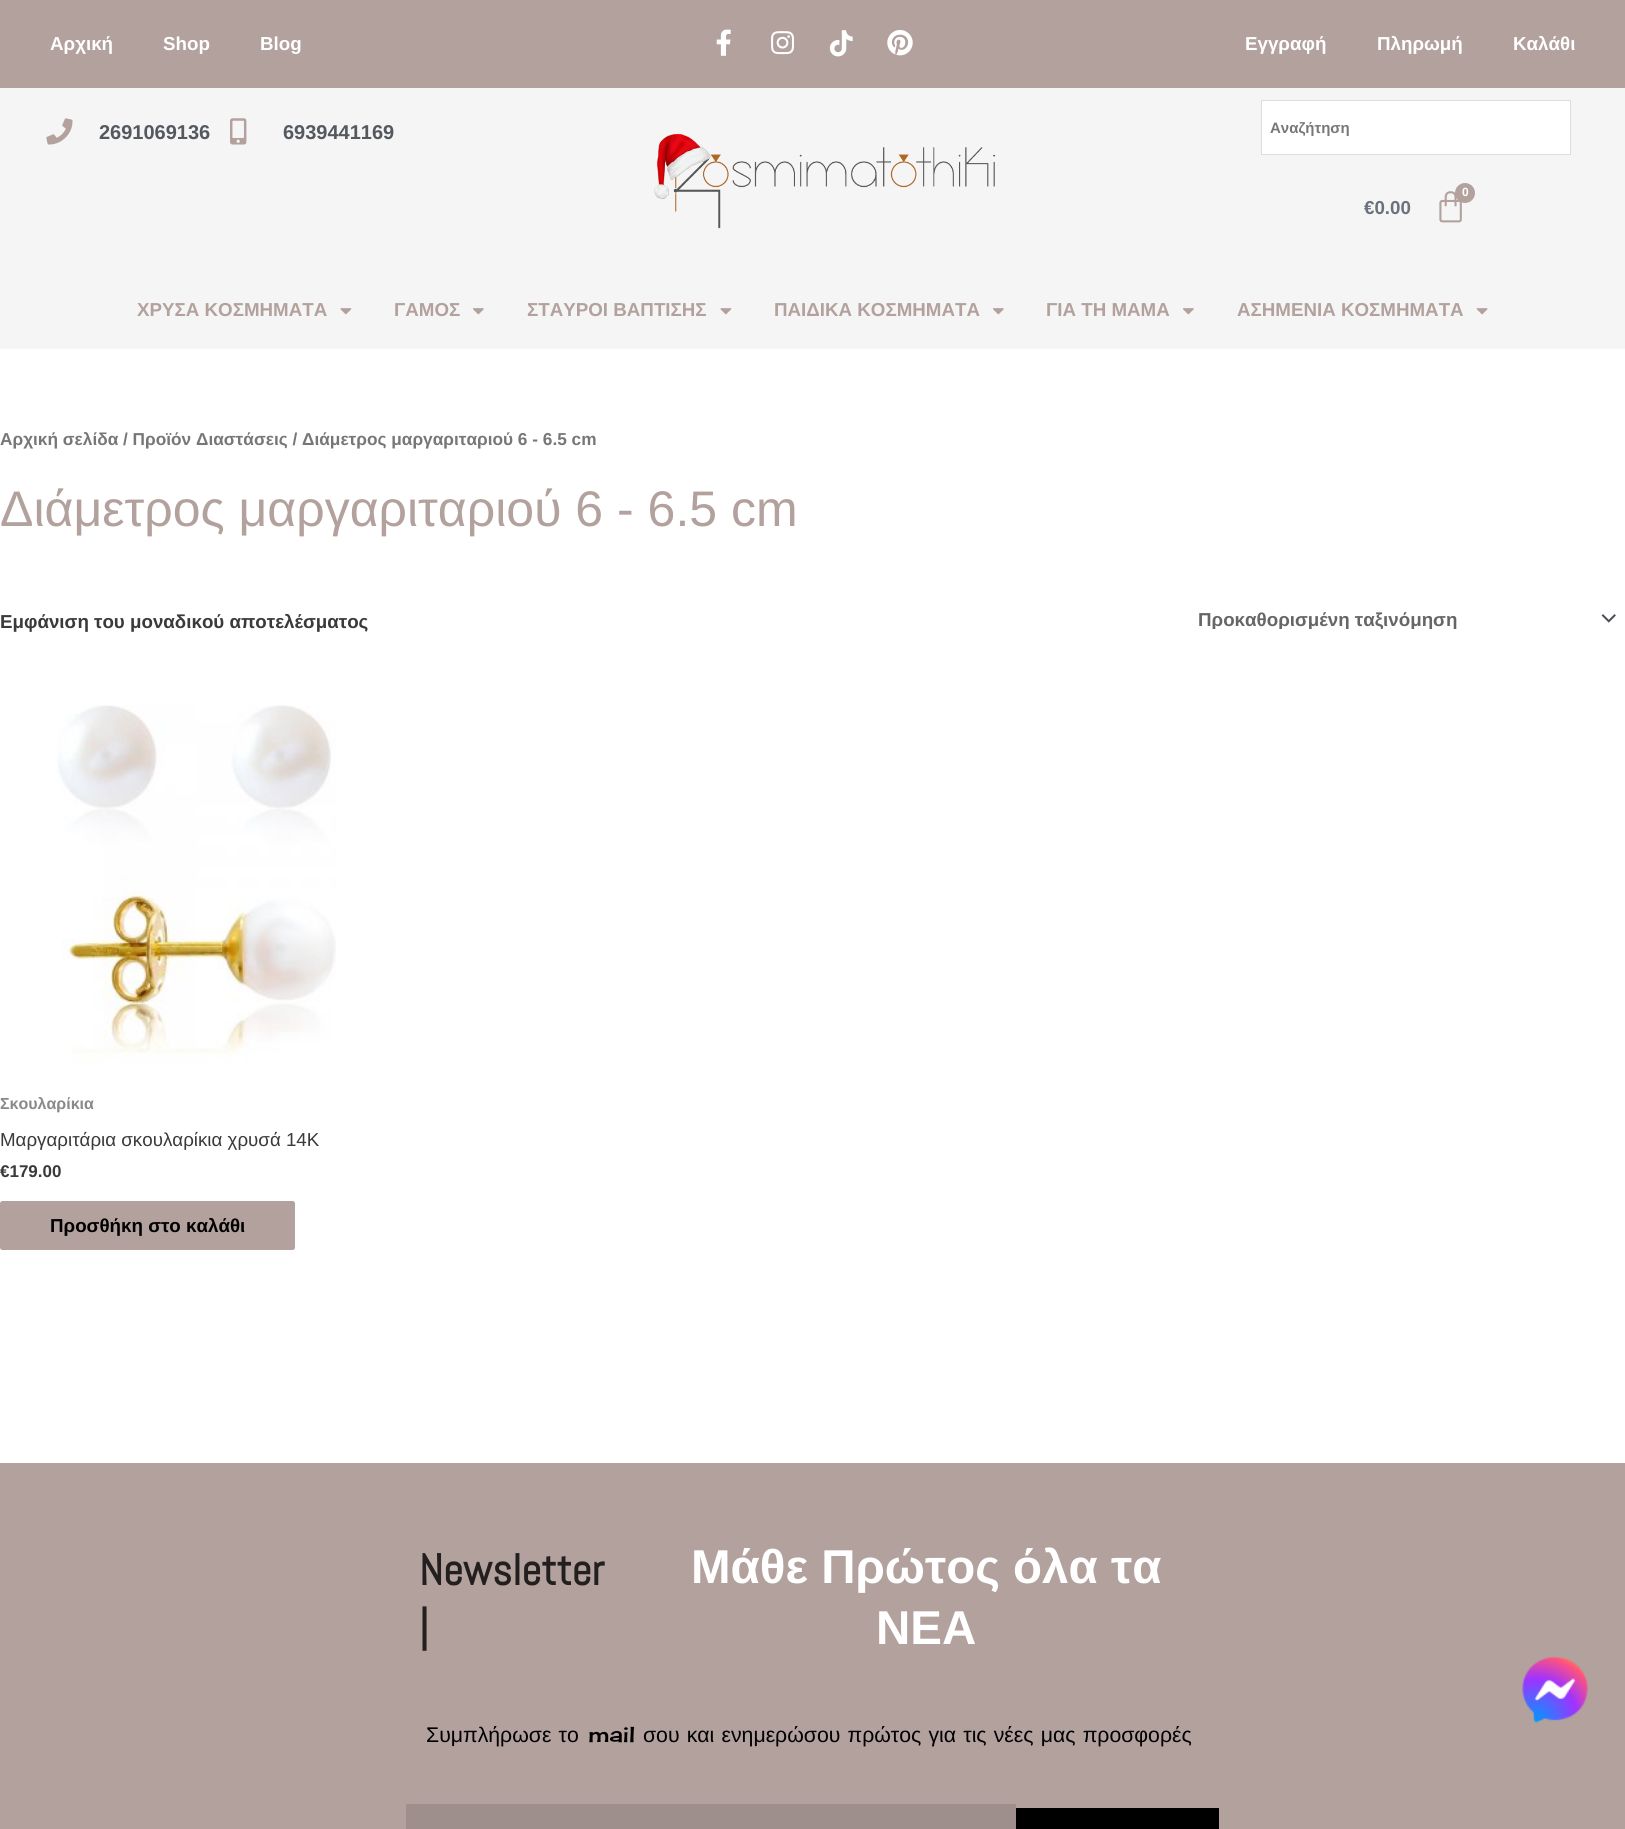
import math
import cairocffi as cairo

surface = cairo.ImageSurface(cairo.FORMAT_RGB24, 1625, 1829)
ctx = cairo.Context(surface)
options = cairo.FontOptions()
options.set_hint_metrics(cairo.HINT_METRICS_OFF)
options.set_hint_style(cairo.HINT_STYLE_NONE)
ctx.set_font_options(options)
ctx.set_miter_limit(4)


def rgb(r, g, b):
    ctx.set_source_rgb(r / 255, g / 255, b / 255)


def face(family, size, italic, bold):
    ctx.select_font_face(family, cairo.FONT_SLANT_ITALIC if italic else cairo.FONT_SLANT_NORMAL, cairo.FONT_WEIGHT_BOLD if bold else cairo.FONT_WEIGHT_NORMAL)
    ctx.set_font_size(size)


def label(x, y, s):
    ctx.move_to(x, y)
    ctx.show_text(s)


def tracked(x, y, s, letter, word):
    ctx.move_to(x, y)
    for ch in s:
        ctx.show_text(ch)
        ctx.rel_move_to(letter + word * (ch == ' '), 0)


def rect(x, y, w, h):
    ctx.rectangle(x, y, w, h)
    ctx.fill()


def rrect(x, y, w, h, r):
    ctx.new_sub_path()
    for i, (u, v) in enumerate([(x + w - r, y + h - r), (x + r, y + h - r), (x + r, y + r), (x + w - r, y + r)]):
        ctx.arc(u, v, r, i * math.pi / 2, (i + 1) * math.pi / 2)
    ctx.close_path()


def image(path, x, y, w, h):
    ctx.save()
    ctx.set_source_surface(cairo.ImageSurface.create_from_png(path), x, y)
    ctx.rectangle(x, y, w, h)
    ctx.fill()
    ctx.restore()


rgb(255, 255, 255)
ctx.paint()
rgb(245, 245, 245)
rect(0, 88, 1625, 261)
rgb(178, 161, 157)
rect(0, 0, 1625, 88)
face('Liberation Sans', 18.75, 0, 1)
rgb(255, 255, 255)
label(50, 50, 'Αρχική')
label(163, 50, 'Shop')
label(260, 50, 'Blog')
image('image0.png', 716, 29, 15, 27)
image('image1.png', 771, 31, 23, 24)
image('image2.png', 829, 30, 24, 27)
image('image3.png', 887, 30, 26, 26)
label(1245, 50, 'Εγγραφή')
label(1377, 50, 'Πληρωμή')
label(1513, 50, 'Καλάθι')
image('image4.png', 46, 118, 27, 27)
face('Liberation Sans', 20, 0, 1)
rgb(84, 89, 95)
label(99, 139, '2691069136')
image('image5.png', 230, 118, 17, 27)
label(283, 139, '6939441169')
rgb(255, 255, 255)
ctx.rectangle(1261.5, 100.5, 309, 54)
ctx.fill_preserve()
rgb(221, 221, 221)
ctx.set_line_width(1)
ctx.stroke()
ctx.save()
ctx.rectangle(1270, 119, 250, 17)
ctx.clip()
face('Liberation Sans', 15, 0, 1)
rgb(119, 119, 119)
label(1270, 133, 'Αναζήτηση')
ctx.restore()
image('image6.png', 1439, 191, 23, 32)
rgb(178, 161, 157)
ctx.arc(1465, 193, 10, 0, 2 * math.pi)
ctx.fill()
face('Liberation Sans', 12, 0, 1)
rgb(255, 255, 255)
label(1462, 196, '0')
face('Liberation Sans', 18.75, 0, 1)
rgb(105, 114, 125)
label(1364, 214, '€0.00')
image('image7.png', 654, 134, 342, 95)
rgb(178, 161, 157)
label(137, 316, 'ΧΡΥΣΑ ΚΟΣΜΗΜΑΤΑ')
image('image8.png', 340, 308, 12, 7)
label(394, 316, 'ΓΑΜΟΣ')
image('image9.png', 473, 308, 11, 7)
label(527, 316, 'ΣΤΑΥΡΟΙ ΒΑΠΤΙΣΗΣ')
image('image8.png', 720, 308, 12, 7)
label(774, 316, 'ΠΑΙΔΙΚΑ ΚΟΣΜΗΜΑΤΑ')
image('image9.png', 993, 308, 11, 7)
label(1046, 316, 'ΓΙΑ ΤΗ ΜΑΜΑ')
image('image9.png', 1183, 308, 11, 7)
label(1237, 316, 'ΑΣΗΜΕΝΙΑ ΚΟΣΜΗΜΑΤΑ')
image('image10.png', 1476, 308, 12, 7)
face('Liberation Sans', 17.25, 0, 1)
rgb(119, 119, 119)
label(0, 445, 'Αρχική σελίδα / Προϊόν Διαστάσεις / Διάμετρος μαργαριταριού 6 - 6.5 cm')
face('Liberation Sans', 50, 0, 0)
rgb(178, 161, 157)
label(0, 526, 'Διάμετρος μαργαριταριού 6 - 6.5 cm')
face('Liberation Sans', 18.75, 0, 1)
rgb(58, 58, 58)
label(0, 628, 'Εμφάνιση του μοναδικού αποτελέσματος')
image('image11.png', 1601, 614, 15, 9)
ctx.save()
ctx.rectangle(1198, 608, 390, 21)
ctx.clip()
rgb(102, 102, 102)
label(1198, 626, 'Προκαθορισμένη ταξινόμηση')
ctx.restore()
image('image12.png', 57, 705, 279, 358)
face('Liberation Sans', 16, 0, 1)
rgb(137, 137, 137)
label(0, 1109, 'Σκουλαρίκια')
face('Liberation Sans', 18.75, 0, 0)
rgb(58, 58, 58)
label(0, 1146, 'Μαργαριτάρια σκουλαρίκια χρυσά 14Κ')
face('Liberation Sans', 17, 0, 1)
label(0, 1177, '€179.00')
rgb(178, 161, 157)
rrect(0, 1201, 295, 49, 2.5)
ctx.fill()
face('Liberation Sans', 18.75, 0, 1)
rgb(0, 0, 0)
label(50, 1232, 'Προσθήκη στο καλάθι')
rgb(178, 161, 157)
rect(0, 1463, 1625, 366)
face('Abel', 43.75, 0, 1)
rgb(34, 31, 30)
label(419, 1585, 'Newsletter')
label(419, 1642, '|')
face('Liberation Sans', 47.5, 0, 1)
rgb(255, 255, 255)
label(691, 1583, 'Μάθε Πρώτος όλα τα')
label(876, 1644, 'ΝΕΑ')
face('Liberation Sans', 21.25, 0, 0)
rgb(0, 0, 0)
tracked(426, 1742, 'Συμπλήρωσε το', 0, 1.25)
face('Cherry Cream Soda', 21.25, 0, 0)
label(588, 1742, 'mail')
face('Liberation Sans', 21.25, 0, 0)
tracked(643, 1742, 'σου και ενημερώσου πρώτος για τις νέες μας προσφορές', 0, 1.25)
rgb(158, 143, 140)
rect(406, 1804, 610, 25)
rgb(0, 0, 0)
rect(1016, 1808, 203, 21)
image('image13.png', 1522, 1656, 66, 67)
surface.write_to_png('render.png')
